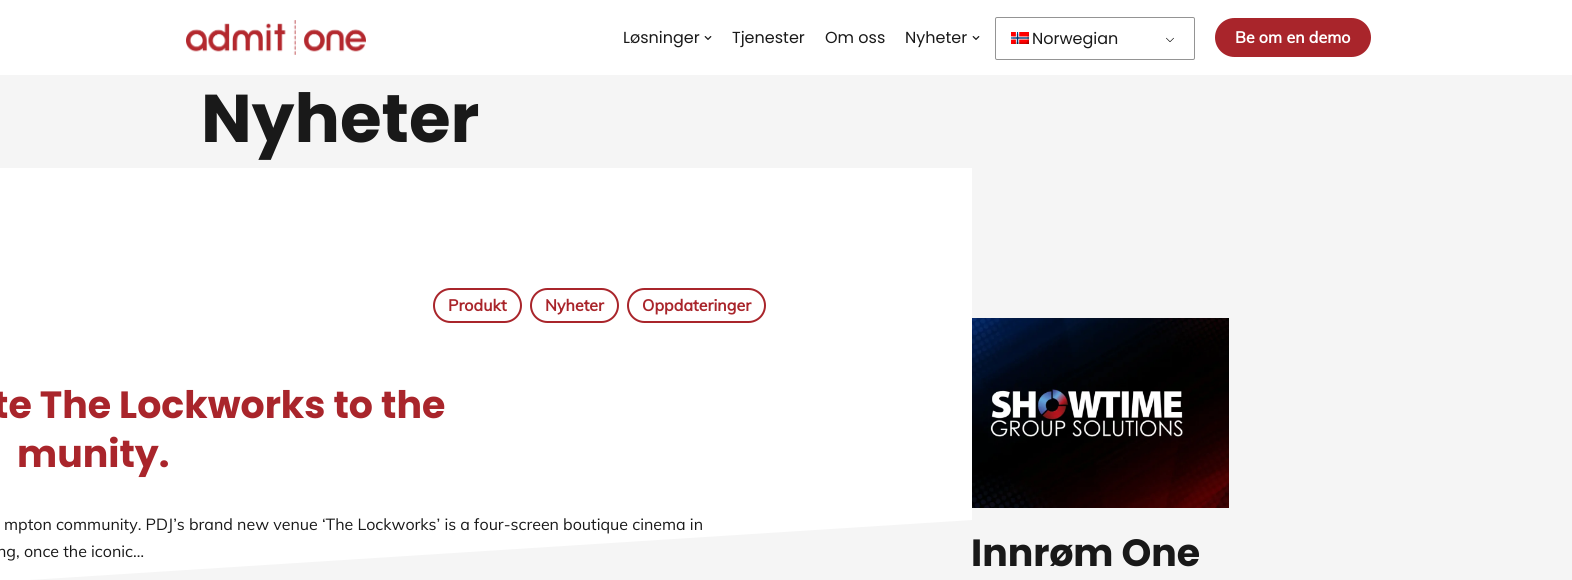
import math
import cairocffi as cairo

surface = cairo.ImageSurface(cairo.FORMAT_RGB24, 1572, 580)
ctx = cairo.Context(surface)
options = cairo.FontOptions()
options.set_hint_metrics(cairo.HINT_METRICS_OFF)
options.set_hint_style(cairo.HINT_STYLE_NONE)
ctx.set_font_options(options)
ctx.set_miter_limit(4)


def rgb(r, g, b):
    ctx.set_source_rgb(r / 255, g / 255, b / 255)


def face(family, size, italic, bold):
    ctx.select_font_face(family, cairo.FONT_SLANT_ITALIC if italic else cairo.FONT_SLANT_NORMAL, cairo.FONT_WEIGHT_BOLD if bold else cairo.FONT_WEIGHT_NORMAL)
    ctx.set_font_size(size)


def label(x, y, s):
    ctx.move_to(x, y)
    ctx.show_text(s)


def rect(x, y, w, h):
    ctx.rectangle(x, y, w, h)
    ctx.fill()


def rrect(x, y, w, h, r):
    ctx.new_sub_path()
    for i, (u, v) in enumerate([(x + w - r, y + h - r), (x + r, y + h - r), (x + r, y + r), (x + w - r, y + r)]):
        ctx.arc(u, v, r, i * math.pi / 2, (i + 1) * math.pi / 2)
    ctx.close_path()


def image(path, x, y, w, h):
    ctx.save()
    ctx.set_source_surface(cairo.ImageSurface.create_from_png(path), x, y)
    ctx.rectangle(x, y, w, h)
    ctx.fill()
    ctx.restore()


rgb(245, 245, 245)
ctx.paint()
rgb(255, 255, 255)
rect(0, 0, 1572, 75)
image('image0.png', 186, 20, 180, 35)
face('Poppins', 16, 0, 0)
rgb(25, 25, 25)
label(623, 43, 'Løsninger')
image('image1.png', 704, 36, 8, 4)
label(732, 43, 'Tjenester')
label(825, 43, 'Om oss')
label(905, 43, 'Nyheter')
image('image1.png', 972, 36, 8, 4)
image('image2.png', 1166, 37, 8, 5)
rrect(995.5, 17.5, 199, 42, 1.5)
rgb(148, 148, 148)
ctx.set_line_width(1)
ctx.stroke()
image('image3.png', 1011, 32, 18, 12)
rgb(25, 25, 25)
label(1032, 44, 'Norwegian')
rgb(169, 37, 43)
rrect(1215, 18, 156, 39, 19.5)
ctx.fill()
face('Muli', 16, 0, 1)
rgb(255, 255, 255)
label(1235, 43, 'Be om en demo')
face('Poppins', 67.5, 0, 1)
rgb(25, 25, 25)
label(201, 142, 'Nyheter')
rgb(255, 255, 255)
rect(0, 168, 972, 412)
rrect(434, 289, 87, 33, 16.5)
rgb(169, 37, 43)
ctx.set_line_width(2)
ctx.stroke()
face('Muli', 16, 0, 1)
label(448, 311, 'Produkt')
rrect(531, 289, 87, 33, 16.5)
ctx.stroke()
label(545, 311, 'Nyheter')
rrect(628, 289, 137, 33, 16.5)
ctx.stroke()
label(642, 311, 'Oppdateringer')
rgb(245, 245, 245)
ctx.new_path()
ctx.move_to(972, 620)
ctx.line_to(972, 520)
ctx.line_to(-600, 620)
ctx.close_path()
ctx.fill()
face('Poppins', 37.9, 0, 1)
rgb(169, 37, 43)
label(-7, 418, 'te The Lockworks to the')
label(17, 467, 'munity.')
face('Muli', 16, 0, 0)
rgb(25, 25, 25)
label(4, 530, 'mpton community. PDJ’s brand new venue ‘The Lockworks’ is a four-screen boutique cinema in')
label(-3, 557, 'ng, once the iconic…')
image('image4.png', 972, 318, 257, 190)
face('Poppins', 37.9, 0, 1)
label(971, 566, 'Innrøm One')
surface.write_to_png('render.png')
